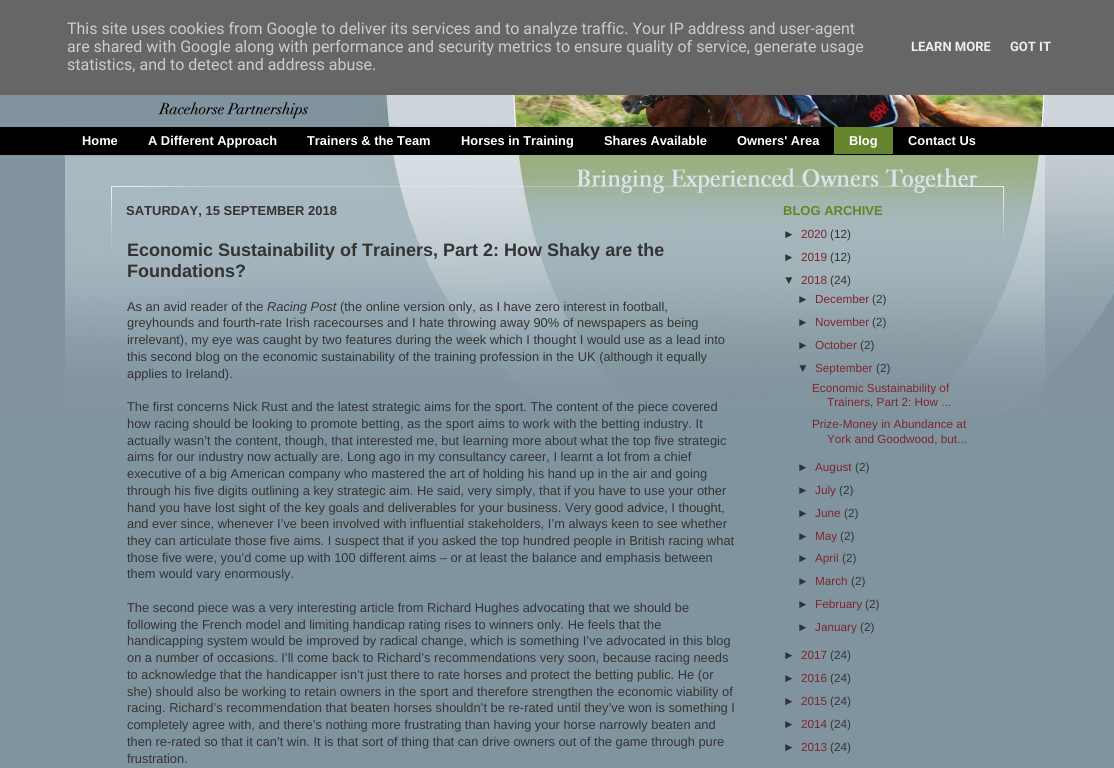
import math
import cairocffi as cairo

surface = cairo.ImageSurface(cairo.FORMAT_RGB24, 1114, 768)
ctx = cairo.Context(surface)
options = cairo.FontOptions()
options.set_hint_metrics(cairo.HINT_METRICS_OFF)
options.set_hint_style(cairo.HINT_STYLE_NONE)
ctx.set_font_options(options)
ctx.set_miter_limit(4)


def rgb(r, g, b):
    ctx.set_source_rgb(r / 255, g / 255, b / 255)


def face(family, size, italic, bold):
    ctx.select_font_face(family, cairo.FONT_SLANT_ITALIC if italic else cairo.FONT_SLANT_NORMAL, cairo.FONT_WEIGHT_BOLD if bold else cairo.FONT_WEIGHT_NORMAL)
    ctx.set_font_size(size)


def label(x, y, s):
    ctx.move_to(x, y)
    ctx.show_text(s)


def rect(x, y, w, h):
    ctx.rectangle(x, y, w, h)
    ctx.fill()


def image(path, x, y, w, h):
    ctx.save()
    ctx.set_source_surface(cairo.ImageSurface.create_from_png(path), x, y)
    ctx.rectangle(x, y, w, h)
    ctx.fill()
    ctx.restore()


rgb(128, 148, 159)
ctx.paint()
image('image0.png', 0, 95, 1114, 323)
rgb(102, 102, 102)
rect(0, 0, 1114, 95)
face('Roboto', 16, 0, 0)
rgb(204, 204, 204)
label(67, 34, 'This site uses cookies from Google to deliver its services and to analyze traffic. Your IP address and user-agent')
label(67, 52, 'are shared with Google along with performance and security metrics to ensure quality of service, generate usage')
label(67, 70, 'statistics, and to detect and address abuse.')
face('Roboto', 13, 0, 1)
rgb(238, 238, 238)
label(911, 51, 'LEARN MORE')
label(1010, 51, 'GOT IT')
image('image1.png', 158, 101, 150, 18)
rgb(0, 0, 0)
rect(67, 127, 225, 26)
face('Liberation Sans', 12.85, 0, 1)
rgb(255, 255, 255)
label(82, 145, 'Home')
label(148, 145, 'A Different Approach')
rgb(0, 0, 0)
rect(292, 127, 542, 27)
rgb(255, 255, 255)
label(307, 145, 'Trainers & the Team')
label(461, 145, 'Horses in Training')
label(604, 145, 'Shares Available')
label(737, 145, 'Owners\' Area')
rgb(103, 132, 47)
rect(834, 127, 59, 27)
rgb(255, 255, 255)
label(849, 145, 'Blog')
rgb(0, 0, 0)
rect(893, 127, 97, 27)
rgb(255, 255, 255)
label(908, 145, 'Contact Us')
face('Liberation Sans', 13, 0, 1)
rgb(51, 51, 51)
label(126, 215, 'SATURDAY, 15 SEPTEMBER 2018')
face('Liberation Sans', 18, 0, 1)
label(127, 256, 'Economic Sustainability of Trainers, Part 2: How Shaky are the')
label(127, 277, 'Foundations?')
face('Liberation Sans', 12.85, 0, 0)
label(127, 311, 'As an avid reader of the')
face('Liberation Sans', 12.85, 1, 0)
label(267, 311, 'Racing Post')
face('Liberation Sans', 12.85, 0, 0)
label(340, 311, '(the online version only, as I have zero interest in football,')
label(127, 327, 'greyhounds and fourth-rate Irish racecourses and I hate throwing away 90% of newspapers as being')
label(127, 344, 'irrelevant), my eye was caught by two features during the week which I thought I would use as a lead into')
label(127, 361, 'this second blog on the economic sustainability of the training profession in the UK (although it equally')
label(127, 378, 'applies to Ireland).')
label(127, 411, 'The first concerns Nick Rust and the latest strategic aims for the sport. The content of the piece covered')
label(127, 428, 'how racing should be looking to promote betting, as the sport aims to work with the betting industry. It')
label(127, 445, 'actually wasn’t the content, though, that interested me, but learning more about what the top five strategic')
label(127, 461, 'aims for our industry now actually are. Long ago in my consultancy career, I learnt a lot from a chief')
label(127, 478, 'executive of a big American company who mastered the art of holding his hand up in the air and going')
label(127, 495, 'through his five digits outlining a key strategic aim. He said, very simply, that if you have to use your other')
label(127, 512, 'hand you have lost sight of the key goals and deliverables for your business. Very good advice, I thought,')
label(127, 528, 'and ever since, whenever I’ve been involved with influential stakeholders, I’m always keen to see whether')
label(127, 545, 'they can articulate those five aims. I suspect that if you asked the top hundred people in British racing what')
label(127, 562, 'those five were, you’d come up with 100 different aims – or at least the balance and emphasis between')
label(127, 578, 'them would vary enormously.')
label(127, 612, 'The second piece was a very interesting article from Richard Hughes advocating that we should be')
label(127, 629, 'following the French model and limiting handicap rating rises to winners only. He feels that the')
label(127, 645, 'handicapping system would be improved by radical change, which is something I’ve advocated in this blog')
label(127, 662, 'on a number of occasions. I’ll come back to Richard’s recommendations very soon, because racing needs')
label(127, 679, 'to acknowledge that the handicapper isn’t just there to rate horses and protect the betting public. He (or')
label(127, 696, 'she) should also be working to retain owners in the sport and therefore strengthen the economic viability of')
label(127, 712, 'racing. Richard’s recommendation that beaten horses shouldn’t be re-rated until they’ve won is something I')
label(127, 729, 'completely agree with, and there’s nothing more frustrating than having your horse narrowly beaten and')
label(127, 746, 'then re-rated so that it can’t win. It is that sort of thing that can drive owners out of the game through pure')
label(127, 763, 'frustration.')
face('Liberation Sans', 13, 0, 1)
rgb(102, 132, 37)
label(783, 215, 'BLOG ARCHIVE')
face('Liberation Sans', 11.75, 0, 0)
rgb(51, 51, 51)
label(783, 238, '►')
rgb(124, 37, 45)
label(801, 238, '2020')
rgb(51, 51, 51)
label(830, 238, '(12)')
label(783, 261, '►')
rgb(124, 37, 45)
label(801, 261, '2019')
rgb(51, 51, 51)
label(830, 261, '(12)')
label(783, 284, '▼')
rgb(124, 37, 45)
label(801, 284, '2018')
rgb(51, 51, 51)
label(830, 284, '(24)')
label(797, 303, '►')
rgb(124, 37, 45)
label(815, 303, 'December')
rgb(51, 51, 51)
label(872, 303, '(2)')
label(797, 326, '►')
rgb(124, 37, 45)
label(815, 326, 'November')
rgb(51, 51, 51)
label(872, 326, '(2)')
label(797, 349, '►')
rgb(124, 37, 45)
label(815, 349, 'October')
rgb(51, 51, 51)
label(860, 349, '(2)')
label(797, 372, '▼')
rgb(124, 37, 45)
label(815, 372, 'September')
rgb(51, 51, 51)
label(876, 372, '(2)')
rgb(124, 37, 45)
label(812, 392, 'Economic Sustainability of')
label(827, 406, 'Trainers, Part 2: How ...')
label(812, 428, 'Prize-Money in Abundance at')
label(827, 443, 'York and Goodwood, but...')
rgb(51, 51, 51)
label(797, 471, '►')
rgb(124, 37, 45)
label(815, 471, 'August')
rgb(51, 51, 51)
label(855, 471, '(2)')
label(797, 494, '►')
rgb(124, 37, 45)
label(815, 494, 'July')
rgb(51, 51, 51)
label(839, 494, '(2)')
label(797, 517, '►')
rgb(124, 37, 45)
label(815, 517, 'June')
rgb(51, 51, 51)
label(844, 517, '(2)')
label(797, 540, '►')
rgb(124, 37, 45)
label(815, 540, 'May')
rgb(51, 51, 51)
label(840, 540, '(2)')
label(797, 562, '►')
rgb(124, 37, 45)
label(815, 562, 'April')
rgb(51, 51, 51)
label(842, 562, '(2)')
label(797, 585, '►')
rgb(124, 37, 45)
label(815, 585, 'March')
rgb(51, 51, 51)
label(851, 585, '(2)')
label(797, 608, '►')
rgb(124, 37, 45)
label(815, 608, 'February')
rgb(51, 51, 51)
label(865, 608, '(2)')
label(797, 631, '►')
rgb(124, 37, 45)
label(815, 631, 'January')
rgb(51, 51, 51)
label(860, 631, '(2)')
label(783, 659, '►')
rgb(124, 37, 45)
label(801, 659, '2017')
rgb(51, 51, 51)
label(830, 659, '(24)')
label(783, 682, '►')
rgb(124, 37, 45)
label(801, 682, '2016')
rgb(51, 51, 51)
label(830, 682, '(24)')
label(783, 705, '►')
rgb(124, 37, 45)
label(801, 705, '2015')
rgb(51, 51, 51)
label(830, 705, '(24)')
label(783, 728, '►')
rgb(124, 37, 45)
label(801, 728, '2014')
rgb(51, 51, 51)
label(830, 728, '(24)')
label(783, 751, '►')
rgb(124, 37, 45)
label(801, 751, '2013')
rgb(51, 51, 51)
label(830, 751, '(24)')
surface.write_to_png('render.png')
